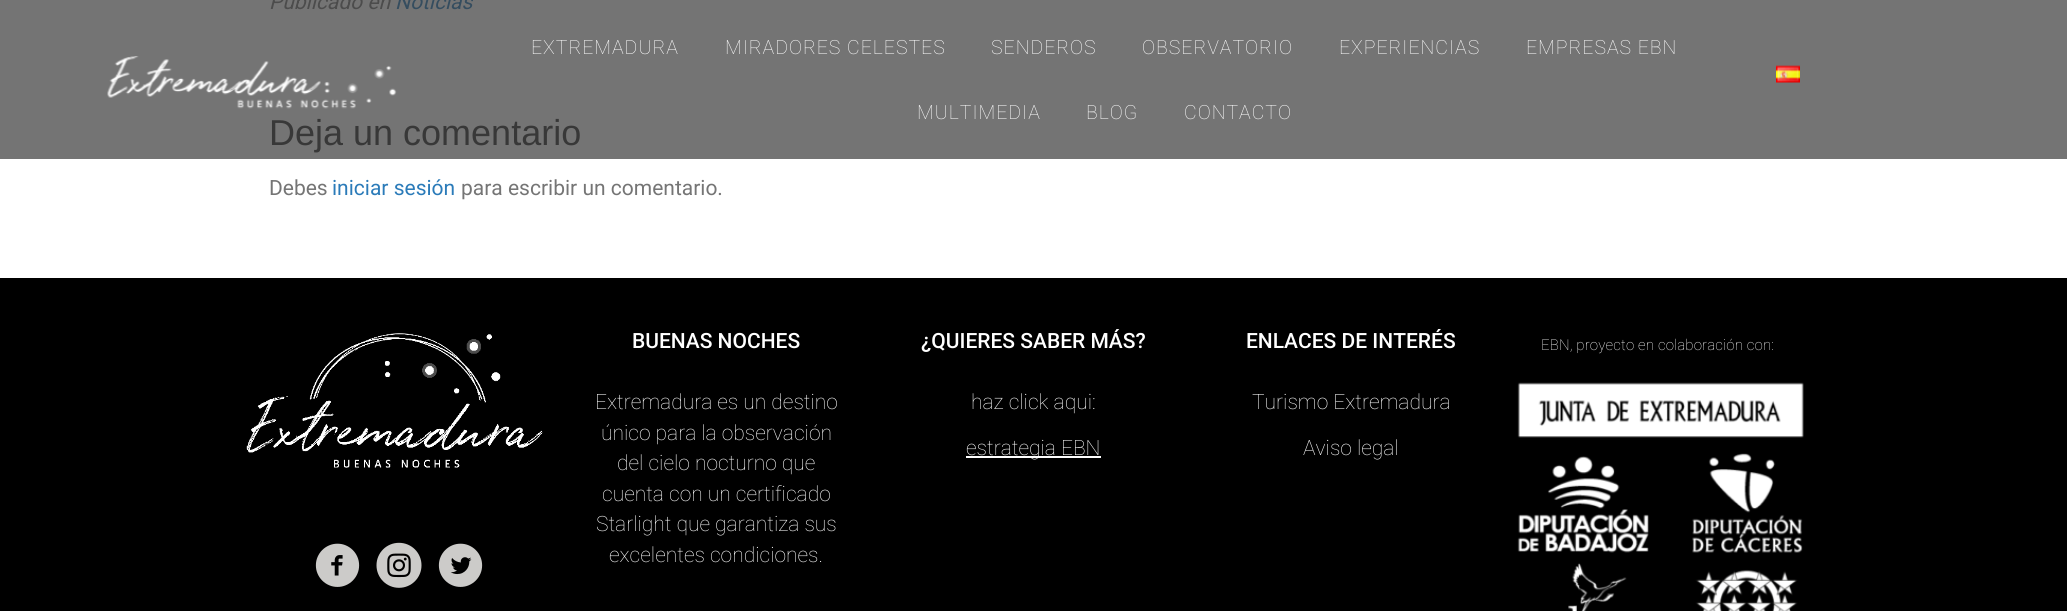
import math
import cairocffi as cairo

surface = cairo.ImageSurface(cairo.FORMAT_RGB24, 2067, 611)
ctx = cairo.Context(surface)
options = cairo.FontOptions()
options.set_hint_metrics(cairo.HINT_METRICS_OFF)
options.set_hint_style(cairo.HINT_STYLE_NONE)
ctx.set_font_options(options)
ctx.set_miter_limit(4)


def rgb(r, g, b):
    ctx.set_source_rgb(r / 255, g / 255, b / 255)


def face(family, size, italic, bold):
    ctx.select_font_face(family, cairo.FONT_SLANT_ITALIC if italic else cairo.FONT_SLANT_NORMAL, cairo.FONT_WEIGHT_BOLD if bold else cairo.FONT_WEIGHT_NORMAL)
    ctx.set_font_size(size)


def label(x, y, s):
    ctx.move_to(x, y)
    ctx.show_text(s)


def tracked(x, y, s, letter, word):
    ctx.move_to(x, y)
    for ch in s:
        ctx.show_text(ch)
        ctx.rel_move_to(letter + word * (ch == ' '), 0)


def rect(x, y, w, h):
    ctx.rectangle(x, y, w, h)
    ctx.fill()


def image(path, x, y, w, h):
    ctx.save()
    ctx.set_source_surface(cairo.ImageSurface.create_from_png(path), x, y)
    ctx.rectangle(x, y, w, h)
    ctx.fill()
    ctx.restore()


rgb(255, 255, 255)
ctx.paint()
rgb(116, 116, 116)
rect(0, 0, 2067, 159)
face('Roboto', 21, 1, 0)
rgb(76, 76, 76)
label(269, 9, 'Publicado en')
rgb(53, 77, 95)
label(395, 9, 'Noticias')
face('Liberation Sans', 36, 0, 0)
rgb(56, 56, 56)
label(269, 145, 'Deja un comentario')
face('Roboto', 21, 0, 0)
rgb(117, 117, 117)
label(269, 195, 'Debes')
rgb(43, 123, 185)
label(332, 195, 'iniciar sesión')
rgb(117, 117, 117)
label(461, 195, 'para escribir un comentario.')
image('image0.png', 107, 56, 290, 53)
face('Roboto Thin', 19.5, 0, 0)
rgb(255, 255, 255)
tracked(531, 54, 'EXTREMADURA', 1, 0)
tracked(725, 54, 'MIRADORES CELESTES', 1, 0)
tracked(991, 54, 'SENDEROS', 1, 0)
tracked(1142, 54, 'OBSERVATORIO', 1, 0)
tracked(1339, 54, 'EXPERIENCIAS', 1, 0)
tracked(1526, 54, 'EMPRESAS EBN', 1, 0)
tracked(917, 119, 'MULTIMEDIA', 1, 0)
tracked(1086, 119, 'BLOG', 1, 0)
tracked(1184, 119, 'CONTACTO', 1, 0)
image('image1.png', 1776, 65, 24, 18)
rgb(0, 0, 0)
rect(0, 278, 2067, 333)
image('image2.png', 246, 333, 297, 135)
image('image3.png', 315, 543, 45, 44)
image('image4.png', 376, 542, 46, 46)
image('image5.png', 438, 543, 45, 44)
face('Roboto Medium', 21, 0, 0)
rgb(255, 255, 255)
label(632, 348, 'BUENAS NOCHES')
face('Roboto Thin', 21, 0, 0)
label(595, 409, 'Extremadura es un destino')
label(601, 440, 'único para la observación')
label(617, 470, 'del cielo nocturno que')
label(602, 501, 'cuenta con un certificado')
label(596, 531, 'Starlight que garantiza sus')
label(609, 562, 'excelentes condiciones.')
face('Roboto Medium', 21, 0, 0)
label(921, 348, '¿QUIERES SABER MÁS?')
face('Roboto Thin', 21, 0, 0)
label(971, 409, 'haz click aqui:')
rect(966, 456, 135, 2)
label(966, 455, 'estrategia EBN')
face('Roboto Medium', 21, 0, 0)
label(1246, 348, 'ENLACES DE INTERÉS')
face('Roboto Thin', 21, 0, 0)
label(1252, 409, 'Turismo Extremadura')
label(1303, 455, 'Aviso legal')
face('Roboto Thin', 15, 0, 0)
tracked(1541, 350, 'EBN, proyecto en colaboración con:', 0.15, 0)
image('image6.png', 1517, 382, 287, 229)
surface.write_to_png('render.png')
